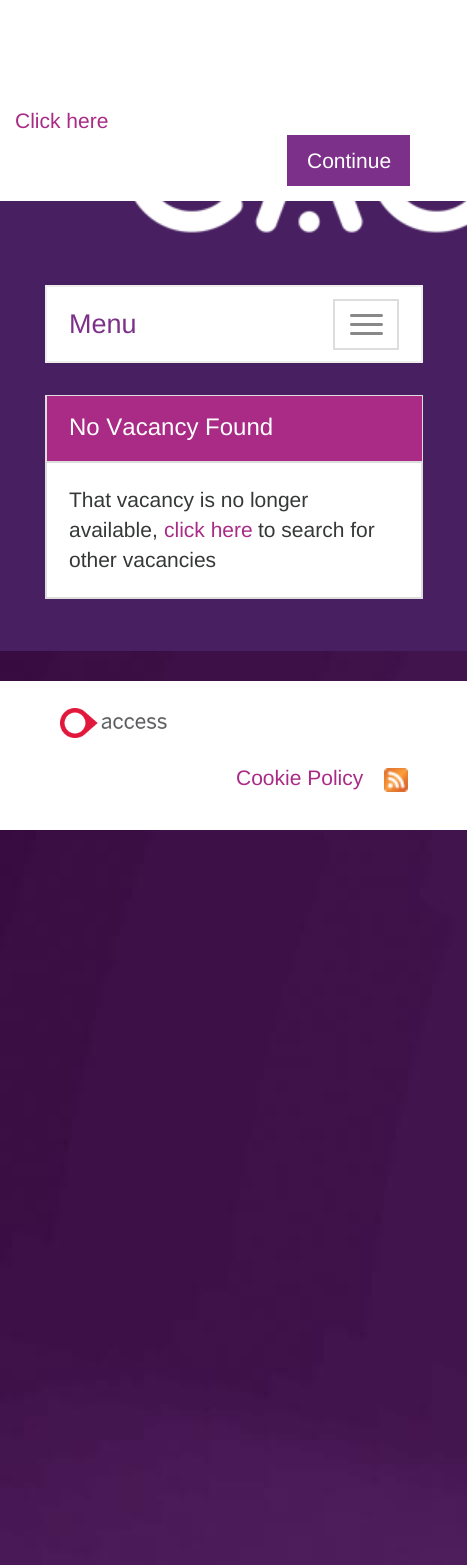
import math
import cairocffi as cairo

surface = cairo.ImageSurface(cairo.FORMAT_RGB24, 467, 1565)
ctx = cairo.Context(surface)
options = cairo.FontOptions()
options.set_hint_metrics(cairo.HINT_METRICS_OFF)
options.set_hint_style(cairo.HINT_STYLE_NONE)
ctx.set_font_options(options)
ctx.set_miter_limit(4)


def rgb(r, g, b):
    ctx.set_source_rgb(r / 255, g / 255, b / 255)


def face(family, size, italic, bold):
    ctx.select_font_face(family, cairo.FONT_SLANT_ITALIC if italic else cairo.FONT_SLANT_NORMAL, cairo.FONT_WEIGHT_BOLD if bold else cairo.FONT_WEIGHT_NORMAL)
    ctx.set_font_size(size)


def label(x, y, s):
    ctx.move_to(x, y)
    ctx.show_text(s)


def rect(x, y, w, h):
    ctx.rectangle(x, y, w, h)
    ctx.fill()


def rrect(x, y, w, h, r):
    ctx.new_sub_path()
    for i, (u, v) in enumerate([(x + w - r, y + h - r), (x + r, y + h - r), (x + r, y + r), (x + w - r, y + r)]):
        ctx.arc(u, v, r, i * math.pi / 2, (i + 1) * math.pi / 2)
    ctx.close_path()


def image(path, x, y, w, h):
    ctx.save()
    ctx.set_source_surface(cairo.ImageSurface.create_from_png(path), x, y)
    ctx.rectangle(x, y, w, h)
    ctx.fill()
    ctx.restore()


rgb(255, 255, 255)
ctx.paint()
image('image0.png', 0, 651, 467, 914)
face('Liberation Sans', 21, 0, 0)
rgb(170, 43, 134)
label(15, 128, 'Click here')
rgb(124, 48, 137)
rect(287, 135, 123, 51)
rgb(255, 255, 255)
label(307, 168, 'Continue')
rgb(72, 32, 98)
rect(0, 201, 467, 450)
image('image1.png', 134, 201, 333, 32)
rgb(255, 255, 255)
ctx.rectangle(46, 286, 376, 76)
ctx.fill_preserve()
rgb(238, 238, 238)
ctx.stroke()
face('Liberation Sans', 27, 0, 0)
rgb(124, 48, 137)
label(69, 333, 'Menu')
ctx.rectangle(334, 300, 64, 49)
rgb(221, 221, 221)
ctx.stroke()
rgb(136, 136, 136)
rrect(350, 314, 33, 3, 1.5)
ctx.fill()
rrect(350, 323, 33, 3, 1.5)
ctx.fill()
rrect(350, 332, 33, 3, 1.5)
ctx.fill()
rgb(255, 255, 255)
rect(47, 463, 374, 134)
ctx.rectangle(46, 396, 376, 202)
rgb(221, 221, 221)
ctx.stroke()
rgb(170, 43, 134)
rect(47, 396, 375, 65)
rgb(221, 221, 221)
rect(47, 461, 375, 2)
face('Liberation Sans', 24, 0, 0)
rgb(255, 255, 255)
label(69, 435, 'No Vacancy Found')
face('Liberation Sans', 21, 0, 0)
rgb(54, 56, 56)
label(69, 507, 'That vacancy is no longer')
label(69, 537, 'available,')
rgb(170, 43, 134)
label(164, 537, 'click here')
rgb(54, 56, 56)
label(258, 537, 'to search for')
label(69, 567, 'other vacancies')
rgb(255, 255, 255)
rect(0, 681, 467, 149)
image('image2.png', 60, 708, 107, 30)
rgb(170, 43, 134)
label(236, 785, 'Cookie Policy')
image('image3.png', 384, 768, 24, 24)
surface.write_to_png('render.png')
